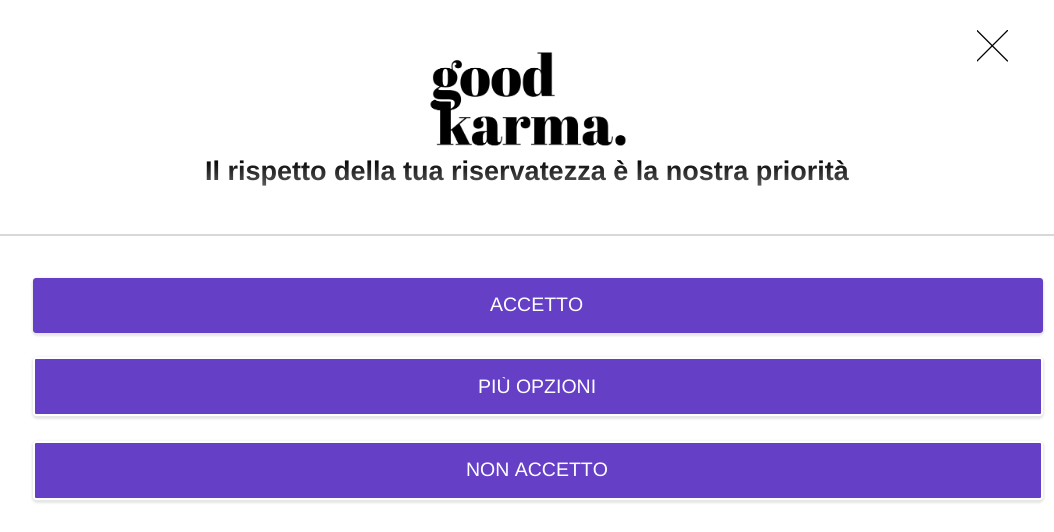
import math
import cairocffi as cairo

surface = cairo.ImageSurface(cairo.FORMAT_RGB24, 1054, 532)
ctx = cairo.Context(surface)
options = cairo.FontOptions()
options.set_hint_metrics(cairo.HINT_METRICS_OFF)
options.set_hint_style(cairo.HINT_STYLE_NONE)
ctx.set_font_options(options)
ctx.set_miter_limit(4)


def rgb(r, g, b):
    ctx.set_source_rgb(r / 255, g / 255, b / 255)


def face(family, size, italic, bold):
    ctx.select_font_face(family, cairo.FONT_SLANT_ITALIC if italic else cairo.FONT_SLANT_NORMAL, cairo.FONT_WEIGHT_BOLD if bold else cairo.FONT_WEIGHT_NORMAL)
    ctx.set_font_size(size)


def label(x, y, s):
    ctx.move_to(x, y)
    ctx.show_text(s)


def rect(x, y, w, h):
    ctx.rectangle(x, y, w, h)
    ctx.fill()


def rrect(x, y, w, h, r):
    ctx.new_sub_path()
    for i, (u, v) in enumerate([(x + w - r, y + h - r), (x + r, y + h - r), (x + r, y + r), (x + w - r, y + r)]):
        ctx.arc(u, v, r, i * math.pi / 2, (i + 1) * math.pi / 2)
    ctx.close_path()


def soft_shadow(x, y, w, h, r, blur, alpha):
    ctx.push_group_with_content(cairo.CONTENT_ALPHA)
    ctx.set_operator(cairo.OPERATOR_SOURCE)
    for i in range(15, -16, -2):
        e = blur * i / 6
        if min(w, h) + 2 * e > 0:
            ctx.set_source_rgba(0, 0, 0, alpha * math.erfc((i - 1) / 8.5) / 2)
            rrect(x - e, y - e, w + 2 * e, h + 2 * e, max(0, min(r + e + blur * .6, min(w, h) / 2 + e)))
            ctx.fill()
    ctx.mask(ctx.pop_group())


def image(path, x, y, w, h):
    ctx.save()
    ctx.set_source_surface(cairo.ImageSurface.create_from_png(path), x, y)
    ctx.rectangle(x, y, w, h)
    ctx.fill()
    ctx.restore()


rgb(255, 255, 255)
ctx.paint()
ctx.save()
ctx.rectangle(977, 30, 31, 32)
ctx.clip()
ctx.new_path()
ctx.move_to(977, 30.5)
ctx.line_to(1007.5, 61)
ctx.move_to(1007.5, 30.5)
ctx.line_to(977, 61)
rgb(0, 0, 0)
ctx.set_line_width(1.3)
ctx.set_line_cap(cairo.LINE_CAP_ROUND)
ctx.set_line_join(cairo.LINE_JOIN_ROUND)
ctx.stroke()
ctx.restore()
image('image0.png', 430, 52, 196, 94)
face('Liberation Sans', 27, 0, 1)
rgb(0, 0, 0)
label(205, 180, 'Il rispetto della tua riservatezza è la nostra priorità')
rgb(216, 216, 216)
rect(0, 234, 1054, 2)
gradient = cairo.LinearGradient(527, 234, 527, 159)
gradient.add_color_stop_rgba(0, 1, 1, 1, 1)
gradient.add_color_stop_rgba(1, 1, 1, 1, 0)
ctx.set_source(gradient)
rect(207, 161, 643, 25)
rgb(0, 0, 0)
soft_shadow(32, 278, 1012, 58, 5, 1, 0.1)
rgb(102, 63, 199)
rrect(33, 278, 1010, 55, 3)
ctx.fill()
face('Liberation Sans', 19.5, 0, 0)
rgb(255, 255, 255)
label(490, 311, 'ACCETTO')
rgb(0, 0, 0)
soft_shadow(32, 357, 1012, 62, 5, 1, 0.1)
rgb(102, 63, 199)
rrect(34, 358, 1008, 57, 2)
ctx.fill_preserve()
rgb(255, 255, 255)
ctx.stroke()
ctx.save()
ctx.rectangle(479, 377, 117, 19)
ctx.clip()
label(478, 393, 'PIÙ OPZIONI')
ctx.restore()
rgb(0, 0, 0)
soft_shadow(32, 441, 1012, 62, 5, 1, 0.1)
rgb(102, 63, 199)
rrect(34, 442, 1008, 57, 2)
ctx.fill_preserve()
rgb(255, 255, 255)
ctx.stroke()
label(466, 476, 'NON ACCETTO')
surface.write_to_png('render.png')
